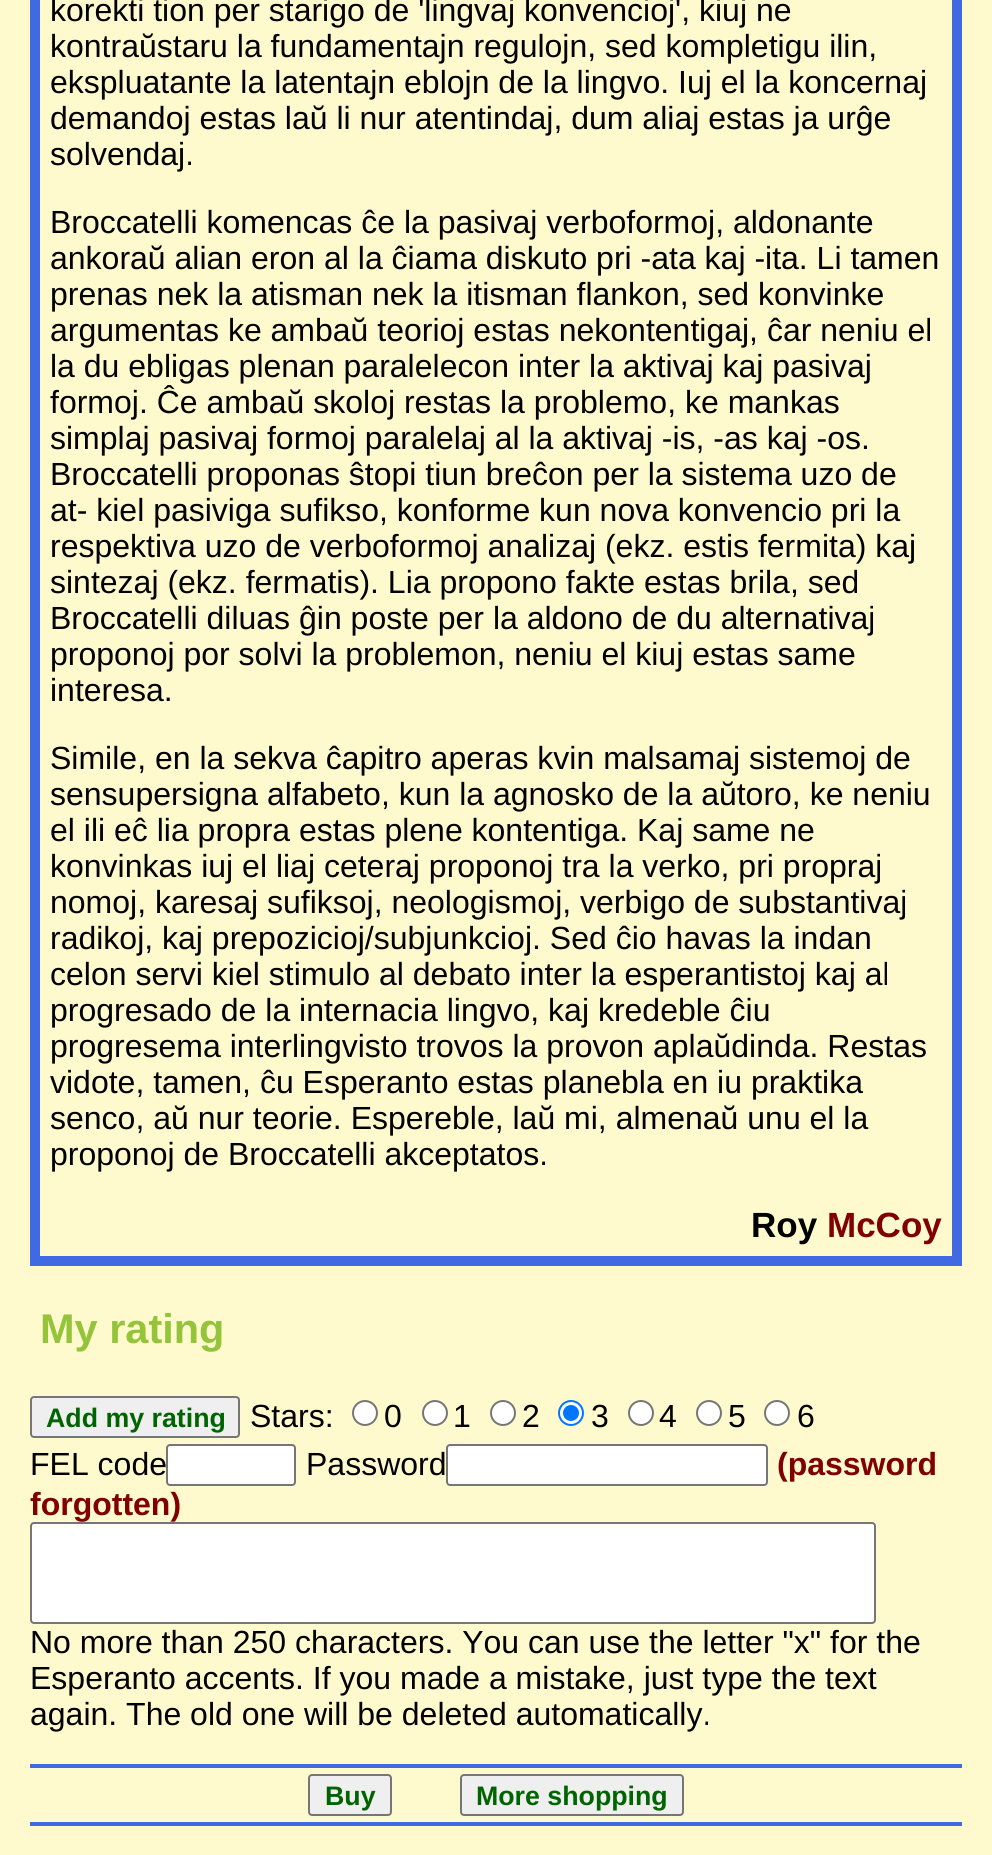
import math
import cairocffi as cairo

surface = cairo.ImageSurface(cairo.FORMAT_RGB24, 992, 1855)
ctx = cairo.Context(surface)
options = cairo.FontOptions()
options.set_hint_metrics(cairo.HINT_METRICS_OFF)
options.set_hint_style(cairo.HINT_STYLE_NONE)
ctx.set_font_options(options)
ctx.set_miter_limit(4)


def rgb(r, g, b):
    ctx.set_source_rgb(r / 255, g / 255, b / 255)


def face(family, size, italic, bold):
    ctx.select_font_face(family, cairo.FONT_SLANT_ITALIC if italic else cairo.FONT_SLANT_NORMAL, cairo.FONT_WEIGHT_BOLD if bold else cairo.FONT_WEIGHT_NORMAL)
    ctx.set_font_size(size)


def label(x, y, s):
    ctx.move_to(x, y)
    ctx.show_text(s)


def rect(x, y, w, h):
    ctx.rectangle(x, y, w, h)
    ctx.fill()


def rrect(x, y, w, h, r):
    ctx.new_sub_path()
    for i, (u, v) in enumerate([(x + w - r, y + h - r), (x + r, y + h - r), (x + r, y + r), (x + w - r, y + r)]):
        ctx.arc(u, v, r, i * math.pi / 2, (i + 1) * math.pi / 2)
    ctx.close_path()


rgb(255, 250, 205)
ctx.paint()
rgb(65, 105, 225)
rect(952, 0, 10, 1256)
rect(40, 1256, 922, 10)
rect(30, 0, 10, 1266)
face('Liberation Sans', 32, 0, 0)
rgb(0, 0, 0)
label(50, 21, 'korekti tion per starigo de \'lingvaj konvencioj\', kiuj ne')
label(50, 57, 'kontraŭstaru la fundamentajn regulojn, sed kompletigu ilin,')
label(50, 93, 'ekspluatante la latentajn eblojn de la lingvo. Iuj el la koncernaj')
label(50, 129, 'demandoj estas laŭ li nur atentindaj, dum aliaj estas ja urĝe')
label(50, 165, 'solvendaj.')
label(50, 233, 'Broccatelli komencas ĉe la pasivaj verboformoj, aldonante')
label(50, 269, 'ankoraŭ alian eron al la ĉiama diskuto pri -ata kaj -ita. Li tamen')
label(50, 305, 'prenas nek la atisman nek la itisman flankon, sed konvinke')
label(50, 341, 'argumentas ke ambaŭ teorioj estas nekontentigaj, ĉar neniu el')
label(50, 377, 'la du ebligas plenan paralelecon inter la aktivaj kaj pasivaj')
label(50, 413, 'formoj. Ĉe ambaŭ skoloj restas la problemo, ke mankas')
label(50, 449, 'simplaj pasivaj formoj paralelaj al la aktivaj -is, -as kaj -os.')
label(50, 485, 'Broccatelli proponas ŝtopi tiun breĉon per la sistema uzo de')
label(50, 521, 'at- kiel pasiviga sufikso, konforme kun nova konvencio pri la')
label(50, 557, 'respektiva uzo de verboformoj analizaj (ekz. estis fermita) kaj')
label(50, 593, 'sintezaj (ekz. fermatis). Lia propono fakte estas brila, sed')
label(50, 629, 'Broccatelli diluas ĝin poste per la aldono de du alternativaj')
label(50, 665, 'proponoj por solvi la problemon, neniu el kiuj estas same')
label(50, 701, 'interesa.')
label(50, 769, 'Simile, en la sekva ĉapitro aperas kvin malsamaj sistemoj de')
label(50, 805, 'sensupersigna alfabeto, kun la agnosko de la aŭtoro, ke neniu')
label(50, 841, 'el ili eĉ lia propra estas plene kontentiga. Kaj same ne')
label(50, 877, 'konvinkas iuj el liaj ceteraj proponoj tra la verko, pri propraj')
label(50, 913, 'nomoj, karesaj sufiksoj, neologismoj, verbigo de substantivaj')
label(50, 949, 'radikoj, kaj prepozicioj/subjunkcioj. Sed ĉio havas la indan')
label(50, 985, 'celon servi kiel stimulo al debato inter la esperantistoj kaj al')
label(50, 1021, 'progresado de la internacia lingvo, kaj kredeble ĉiu')
label(50, 1057, 'progresema interlingvisto trovos la provon aplaŭdinda. Restas')
label(50, 1093, 'vidote, tamen, ĉu Esperanto estas planebla en iu praktika')
label(50, 1129, 'senco, aŭ nur teorie. Espereble, laŭ mi, almenaŭ unu el la')
label(50, 1165, 'proponoj de Broccatelli akceptatos.')
face('Liberation Sans', 35, 0, 1)
label(751, 1237, 'Roy')
rgb(128, 0, 0)
label(827, 1237, 'McCoy')
face('Liberation Sans', 41.5, 0, 1)
rgb(148, 196, 58)
label(40, 1343, 'My rating')
rgb(239, 239, 239)
rrect(31, 1397, 208, 40, 3)
ctx.fill_preserve()
rgb(118, 118, 118)
ctx.stroke()
face('Liberation Sans', 26.75, 0, 1)
rgb(0, 100, 0)
label(46, 1427, 'Add my rating')
face('Liberation Sans', 32, 0, 0)
rgb(0, 0, 0)
label(250, 1427, 'Stars:')
rgb(255, 255, 255)
ctx.new_path()
ctx.arc(365, 1413, 12, 0, 2 * math.pi)
ctx.fill_preserve()
rgb(118, 118, 118)
ctx.stroke()
rgb(0, 0, 0)
label(384, 1427, '0')
rgb(255, 255, 255)
ctx.new_path()
ctx.arc(435, 1413, 12, 0, 2 * math.pi)
ctx.fill_preserve()
rgb(118, 118, 118)
ctx.stroke()
rgb(0, 0, 0)
label(453, 1427, '1')
rgb(255, 255, 255)
ctx.new_path()
ctx.arc(503, 1413, 12, 0, 2 * math.pi)
ctx.fill_preserve()
rgb(118, 118, 118)
ctx.stroke()
rgb(0, 0, 0)
label(522, 1427, '2')
rgb(255, 255, 255)
ctx.new_path()
ctx.arc(571, 1413, 12, 0, 2 * math.pi)
ctx.fill_preserve()
rgb(0, 117, 255)
ctx.stroke()
ctx.arc(571, 1413, 8, 0, 2 * math.pi)
ctx.fill()
rgb(0, 0, 0)
label(591, 1427, '3')
rgb(255, 255, 255)
ctx.new_path()
ctx.arc(641, 1413, 12, 0, 2 * math.pi)
ctx.fill_preserve()
rgb(118, 118, 118)
ctx.stroke()
rgb(0, 0, 0)
label(659, 1427, '4')
rgb(255, 255, 255)
ctx.new_path()
ctx.arc(709, 1413, 12, 0, 2 * math.pi)
ctx.fill_preserve()
rgb(118, 118, 118)
ctx.stroke()
rgb(0, 0, 0)
label(728, 1427, '5')
rgb(255, 255, 255)
ctx.new_path()
ctx.arc(777, 1413, 12, 0, 2 * math.pi)
ctx.fill_preserve()
rgb(118, 118, 118)
ctx.stroke()
rgb(0, 0, 0)
label(797, 1427, '6')
label(30, 1475, 'FEL code')
rgb(255, 255, 255)
rrect(167, 1445, 128, 40, 3)
ctx.fill_preserve()
rgb(118, 118, 118)
ctx.stroke()
rgb(0, 0, 0)
label(306, 1475, 'Password')
rgb(255, 255, 255)
rrect(447, 1445, 320, 40, 3)
ctx.fill_preserve()
rgb(118, 118, 118)
ctx.stroke()
face('Liberation Sans', 32, 0, 1)
rgb(128, 0, 0)
label(777, 1475, '(password')
label(30, 1515, 'forgotten)')
rgb(255, 255, 255)
rrect(31, 1523, 844, 100, 3)
ctx.fill_preserve()
rgb(118, 118, 118)
ctx.stroke()
face('Liberation Sans', 32, 0, 0)
rgb(0, 0, 0)
label(30, 1653, 'No more than 250 characters. You can use the letter "x" for the')
label(30, 1689, 'Esperanto accents. If you made a mistake, just type the text')
label(30, 1725, 'again. The old one will be deleted automatically.')
rgb(65, 105, 225)
rect(30, 1764, 932, 4)
rect(30, 1822, 932, 4)
rgb(239, 239, 239)
rrect(309, 1775, 82, 40, 3)
ctx.fill_preserve()
rgb(118, 118, 118)
ctx.stroke()
face('Liberation Sans', 26.75, 0, 1)
rgb(0, 100, 0)
label(325, 1805, 'Buy')
rgb(239, 239, 239)
rrect(461, 1775, 222, 40, 3)
ctx.fill_preserve()
rgb(118, 118, 118)
ctx.stroke()
rgb(0, 100, 0)
label(476, 1805, 'More shopping')
surface.write_to_png('render.png')
